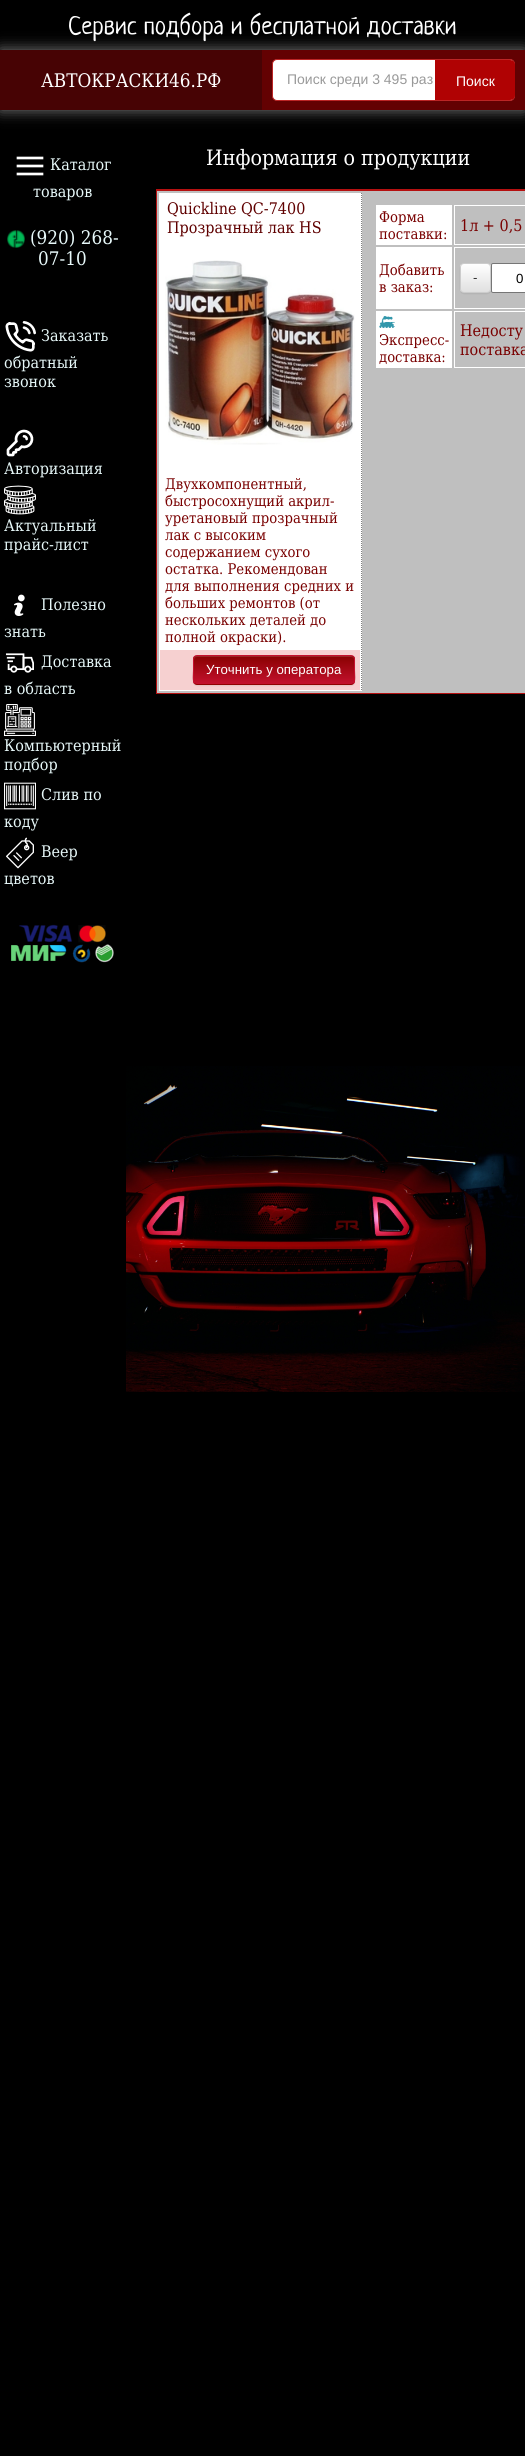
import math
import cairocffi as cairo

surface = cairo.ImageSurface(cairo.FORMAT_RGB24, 525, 2456)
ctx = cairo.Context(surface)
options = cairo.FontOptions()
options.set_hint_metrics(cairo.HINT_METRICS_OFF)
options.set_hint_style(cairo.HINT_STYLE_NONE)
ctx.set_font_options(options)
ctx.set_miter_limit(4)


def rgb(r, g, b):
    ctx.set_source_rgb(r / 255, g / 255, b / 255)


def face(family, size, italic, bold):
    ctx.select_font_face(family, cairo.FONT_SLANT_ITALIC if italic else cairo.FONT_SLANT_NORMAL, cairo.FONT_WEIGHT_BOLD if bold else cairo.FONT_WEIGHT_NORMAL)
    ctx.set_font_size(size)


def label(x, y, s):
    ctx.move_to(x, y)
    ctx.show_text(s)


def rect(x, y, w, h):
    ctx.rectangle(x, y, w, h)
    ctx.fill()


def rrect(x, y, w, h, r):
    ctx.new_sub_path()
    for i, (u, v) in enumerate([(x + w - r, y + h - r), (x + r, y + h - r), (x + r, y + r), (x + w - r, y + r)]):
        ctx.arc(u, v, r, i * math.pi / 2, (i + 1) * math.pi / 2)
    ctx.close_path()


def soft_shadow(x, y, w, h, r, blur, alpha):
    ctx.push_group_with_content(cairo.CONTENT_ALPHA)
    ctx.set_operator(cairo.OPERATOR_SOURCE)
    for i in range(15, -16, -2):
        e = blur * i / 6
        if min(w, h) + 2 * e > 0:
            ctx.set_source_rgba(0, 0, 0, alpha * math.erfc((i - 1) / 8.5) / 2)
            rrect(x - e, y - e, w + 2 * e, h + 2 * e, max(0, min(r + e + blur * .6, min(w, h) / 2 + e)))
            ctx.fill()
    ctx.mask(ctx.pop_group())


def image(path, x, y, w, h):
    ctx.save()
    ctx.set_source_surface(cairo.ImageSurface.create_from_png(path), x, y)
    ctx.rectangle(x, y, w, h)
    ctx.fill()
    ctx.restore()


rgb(0, 0, 0)
ctx.paint()
face('Neucha', 25.3, 0, 0)
rgb(255, 255, 255)
label(68, 34, 'Сервис подбора и бесплатной доставки')
rgb(255, 255, 255)
soft_shadow(0, 50, 525, 60, 0, 7.5, 0.5)
rgb(99, 1, 2)
rect(262, 50, 263, 60)
rgb(71, 3, 4)
rect(0, 50, 262, 60)
face('DejaVu Serif', 18.75, 0, 0)
rgb(255, 255, 255)
label(41, 87, 'АВТОКРАСКИ46.РФ')
rrect(272.5, 59.5, 242, 41, 4.5)
ctx.fill_preserve()
rgb(188, 37, 37)
ctx.set_line_width(1)
ctx.stroke()
face('Liberation Sans', 14, 0, 0)
rgb(153, 153, 153)
label(287, 84, 'Поиск среди 3 495 раз')
rgb(176, 2, 3)
ctx.new_path()
ctx.move_to(435, 60)
ctx.line_to(510, 60)
ctx.curve_to(513, 60, 515, 62, 515, 65)
ctx.line_to(515, 95)
ctx.curve_to(515, 98, 513, 100, 510, 100)
ctx.line_to(435, 100)
ctx.close_path()
ctx.fill()
rgb(255, 255, 255)
label(456, 86, 'Поиск')
image('image0.png', 16, 156, 28, 20)
face('DejaVu Serif', 16, 0, 0)
rgb(231, 248, 249)
label(50, 170, 'Каталог')
label(33, 197, 'товаров')
image('image1.png', 7, 230, 18, 18)
face('DejaVu Serif', 18.75, 0, 0)
label(30, 244, '(920) 268-')
label(38, 265, '07-10')
image('image2.png', 5, 321, 31, 31)
face('DejaVu Serif', 16, 0, 0)
label(41, 341, 'Заказать')
label(4, 368, 'обратный')
label(4, 387, 'звонок')
image('image3.png', 6, 429, 28, 28)
label(4, 474, 'Авторизация')
image('image4.png', 4, 485, 32, 30)
label(4, 531, 'Актуальный')
label(4, 550, 'прайс-лист')
image('image5.png', 14, 594, 11, 22)
label(41, 610, 'Полезно')
label(4, 637, 'знать')
image('image6.png', 5, 653, 29, 20)
label(41, 667, 'Доставка')
label(4, 694, 'в область')
image('image7.png', 4, 704, 32, 32)
label(4, 751, 'Компьютерный')
label(4, 770, 'подбор')
image('image8.png', 4, 782, 32, 28)
label(41, 800, 'Слив по')
label(4, 827, 'коду')
image('image9.png', 6, 837, 28, 32)
label(41, 857, 'Веер')
label(4, 884, 'цветов')
image('image10.png', 19, 924, 53, 19)
image('image11.png', 78, 925, 28, 18)
image('image12.png', 11, 945, 56, 16)
image('image13.png', 72, 944, 19, 19)
image('image14.png', 95, 944, 19, 19)
image('image15.png', 126, 1066, 399, 326)
face('DejaVu Serif', 21.25, 0, 0)
rgb(255, 255, 255)
label(206, 165, 'Информация о продукции')
rgb(191, 191, 191)
rect(157, 191, 368, 502)
rgb(181, 16, 16)
rect(156, 189, 369, 2)
rect(156, 693, 369, 1)
rect(156, 189, 1, 505)
rgb(255, 255, 255)
rect(159, 193, 203, 498)
ctx.new_path()
ctx.move_to(361.5, 193)
ctx.line_to(361.5, 691)
rgb(128, 128, 128)
ctx.set_dash([1, 1])
ctx.stroke()
face('DejaVu Serif', 16, 0, 0)
rgb(95, 0, 0)
label(167, 214, 'Quickline QC-7400')
label(167, 233, 'Прозрачный лак HS')
image('image16.png', 165, 260, 190, 185)
face('DejaVu Serif', 14.7, 0, 0)
rgb(121, 0, 0)
label(165, 489, 'Двухкомпонентный,')
label(165, 506, 'быстросохнущий акрил-')
label(165, 523, 'уретановый прозрачный')
label(165, 540, 'лак с высоким')
label(165, 557, 'содержанием сухого')
label(165, 574, 'остатка. Рекомендован')
label(165, 591, 'для выполнения средних и')
label(165, 608, 'больших ремонтов (от')
label(165, 625, 'нескольких деталей до')
label(165, 642, 'полной окраски).')
rgb(246, 208, 208)
rect(160, 650, 200, 40)
rgb(0, 0, 0)
soft_shadow(193, 656, 162, 30, 4, 0.5, 0.07)
ctx.save()
rrect(193, 655, 162, 30, 4)
ctx.clip()
gradient = cairo.LinearGradient(274, 656, 274, 684)
gradient.add_color_stop_rgba(0, 0.537, 0.004, 0.004, 1)
gradient.add_color_stop_rgba(1, 0.769, 0.067, 0.18, 1)
ctx.set_source(gradient)
rect(193, 656, 162, 28)
ctx.restore()
rgb(156, 39, 40)
ctx.new_path()
ctx.move_to(197, 657)
ctx.line_to(351, 657)
ctx.curve_to(353, 657, 354, 658, 354, 660)
ctx.curve_to(354, 658, 353, 656, 351, 656)
ctx.line_to(196, 656)
ctx.curve_to(194, 656, 194, 658, 194, 660)
ctx.curve_to(194, 658, 195, 657, 197, 657)
ctx.close_path()
ctx.fill()
ctx.new_path()
ctx.move_to(353.5, 683.5)
ctx.curve_to(353, 684, 352, 684.5, 351, 684.5)
ctx.line_to(197, 684.5)
ctx.curve_to(196, 684.5, 195, 684, 194.5, 683.5)
rgb(145, 1, 1)
ctx.set_dash([])
ctx.stroke()
ctx.new_path()
ctx.move_to(194.5, 683.5)
ctx.curve_to(192.5, 681.5, 193.5, 673, 193.5, 670)
ctx.line_to(193.5, 662.5)
ctx.curve_to(193.5, 660, 193, 655.5, 197, 655.5)
ctx.line_to(351, 655.5)
ctx.curve_to(355, 655.5, 354.5, 660, 354.5, 662.5)
ctx.line_to(354.5, 670)
ctx.curve_to(354.5, 673, 355.5, 681.5, 353.5, 683.5)
rgb(196, 17, 46)
ctx.stroke()
face('Liberation Sans', 13.25, 0, 0)
rgb(255, 255, 255)
label(206, 674, 'Уточнить у оператора')
rect(376, 205, 76, 40)
face('DejaVu Serif', 14.7, 0, 0)
rgb(121, 0, 0)
label(379, 222, 'Форма')
label(379, 239, 'поставки:')
ctx.rectangle(454.5, 205.5, 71, 39)
rgb(255, 255, 255)
ctx.stroke()
face('DejaVu Serif', 16, 0, 0)
rgb(121, 0, 0)
label(460, 231, '1л + 0,5')
rgb(255, 255, 255)
rect(376, 247, 76, 62)
face('DejaVu Serif', 14.7, 0, 0)
rgb(121, 0, 0)
label(379, 275, 'Добавить')
label(379, 292, 'в заказ:')
ctx.rectangle(454.5, 247.5, 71, 61)
rgb(255, 255, 255)
ctx.stroke()
rgb(0, 0, 0)
soft_shadow(460, 264, 31, 30, 4, 0.5, 0.07)
ctx.save()
rrect(460, 263, 31, 30, 4)
ctx.clip()
gradient = cairo.LinearGradient(476, 264, 476, 292)
gradient.add_color_stop_rgba(0, 1, 1, 1, 1)
gradient.add_color_stop_rgba(1, 0.878, 0.878, 0.878, 1)
ctx.set_source(gradient)
rect(460, 264, 31, 28)
ctx.restore()
rrect(460.5, 263.5, 30, 29, 3.5)
rgb(204, 204, 204)
ctx.stroke()
face('Liberation Sans', 13.25, 0, 0)
rgb(51, 51, 51)
label(473, 282, '-')
rgb(255, 255, 255)
rrect(491.5, 263.5, 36, 29, 1.5)
ctx.fill_preserve()
rgb(118, 118, 118)
ctx.stroke()
rgb(0, 0, 0)
label(516, 283, '0')
rgb(255, 255, 255)
rect(376, 311, 76, 57)
image('image17.png', 379, 316, 16, 12)
face('DejaVu Serif', 14.7, 0, 0)
rgb(121, 0, 0)
label(379, 345, 'Экспресс-')
label(379, 362, 'доставка:')
ctx.rectangle(454.5, 311.5, 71, 56)
rgb(255, 255, 255)
ctx.stroke()
face('DejaVu Serif', 16, 0, 0)
rgb(121, 0, 0)
label(460, 336, 'Недосту')
label(460, 355, 'поставка')
surface.write_to_png('render.png')
